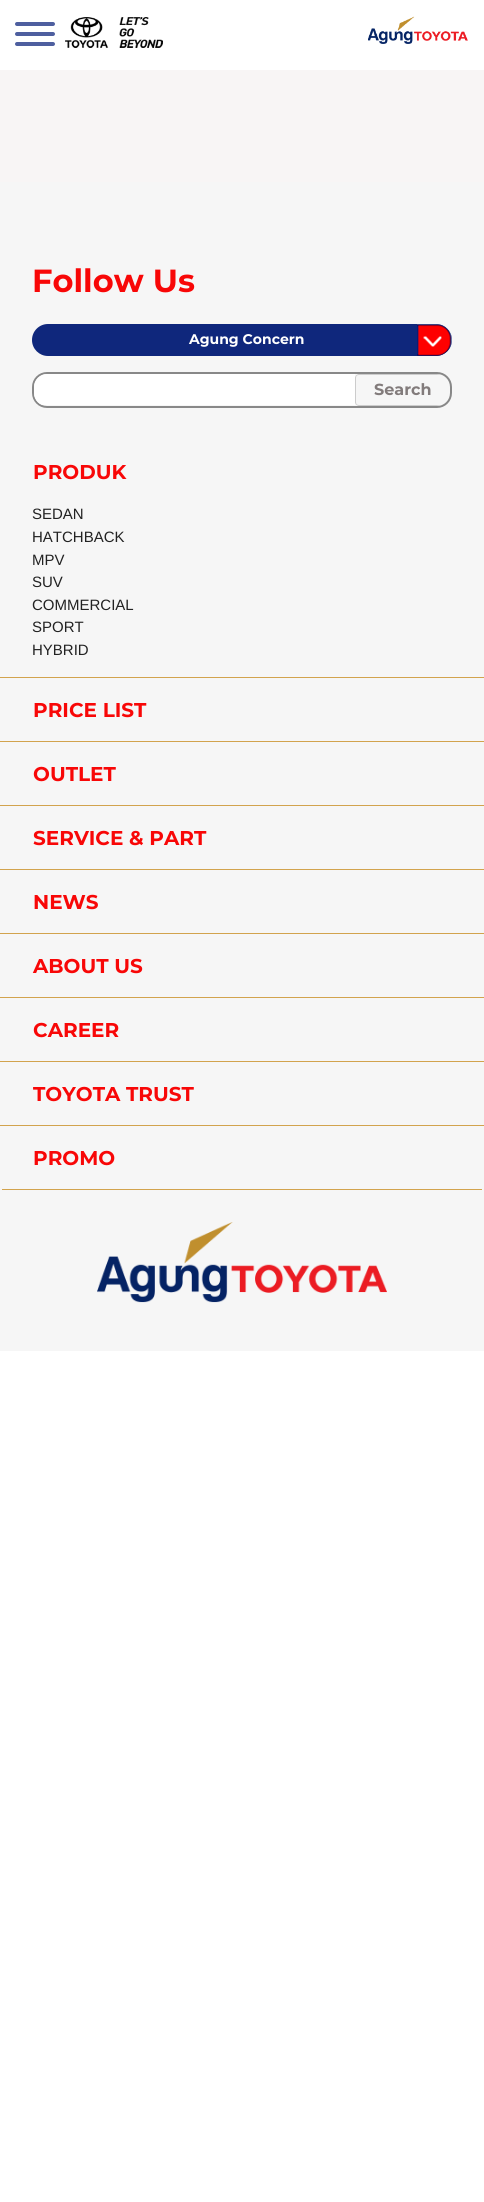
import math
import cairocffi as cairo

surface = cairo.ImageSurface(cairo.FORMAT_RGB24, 484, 2202)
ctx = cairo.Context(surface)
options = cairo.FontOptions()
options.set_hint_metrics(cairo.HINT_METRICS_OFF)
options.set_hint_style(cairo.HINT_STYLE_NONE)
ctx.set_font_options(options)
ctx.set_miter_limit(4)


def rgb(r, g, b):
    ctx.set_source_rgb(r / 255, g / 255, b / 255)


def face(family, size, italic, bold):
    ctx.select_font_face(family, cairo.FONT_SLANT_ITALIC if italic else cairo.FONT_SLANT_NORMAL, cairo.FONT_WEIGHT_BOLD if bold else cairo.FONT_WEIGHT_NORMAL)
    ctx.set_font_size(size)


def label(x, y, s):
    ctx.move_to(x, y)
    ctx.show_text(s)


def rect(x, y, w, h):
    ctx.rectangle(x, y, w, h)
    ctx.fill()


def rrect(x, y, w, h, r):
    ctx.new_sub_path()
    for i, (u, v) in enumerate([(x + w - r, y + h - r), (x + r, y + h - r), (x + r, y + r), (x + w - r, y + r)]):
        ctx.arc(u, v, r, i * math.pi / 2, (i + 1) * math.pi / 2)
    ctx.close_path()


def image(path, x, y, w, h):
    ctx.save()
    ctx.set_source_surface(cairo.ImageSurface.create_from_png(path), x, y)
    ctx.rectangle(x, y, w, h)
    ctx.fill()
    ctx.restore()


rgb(255, 255, 255)
ctx.paint()
rgb(78, 95, 159)
rrect(15, 32, 40, 4, 2)
ctx.fill()
rrect(15, 22, 40, 4, 2)
ctx.fill()
rrect(15, 42, 40, 4, 2)
ctx.fill()
image('image0.png', 65, 17, 98, 31)
image('image1.png', 368, 16, 100, 28)
rgb(248, 245, 245)
rect(0, 70, 484, 112)
rgb(246, 246, 246)
rect(0, 182, 484, 1169)
face('Montserrat', 32, 0, 1)
rgb(248, 7, 7)
label(32, 292, 'Follow Us')
rgb(15, 39, 124)
rrect(32, 324, 420, 32, 16)
ctx.fill()
image('image2.png', 417, 324, 35, 32)
face('Montserrat', 14, 0, 1)
rgb(255, 255, 255)
label(189, 344, 'Agung Concern')
rrect(33, 373, 418, 34, 14)
rgb(136, 136, 136)
ctx.stroke()
ctx.save()
rrect(34, 374, 416, 32, 13)
ctx.clip()
rgb(255, 255, 255)
ctx.new_path()
ctx.move_to(47, 374)
ctx.line_to(355, 374)
ctx.line_to(355, 405)
ctx.line_to(37, 405)
ctx.curve_to(35.5, 405, 34, 403.5, 34, 402)
ctx.line_to(34, 387)
ctx.curve_to(34, 380, 40, 374, 47, 374)
ctx.close_path()
ctx.fill()
ctx.restore()
rgb(204, 204, 204)
ctx.new_path()
ctx.move_to(359, 374)
ctx.curve_to(357, 374, 355, 376, 355, 378)
ctx.line_to(355, 402)
ctx.curve_to(355, 404, 357, 406, 359, 406)
ctx.line_to(437, 406)
ctx.line_to(442, 405)
ctx.line_to(359, 405)
ctx.curve_to(357, 405, 356, 404, 356, 402)
ctx.line_to(356, 378)
ctx.curve_to(356, 376, 357, 375, 359, 375)
ctx.line_to(442, 375)
ctx.line_to(437, 374)
ctx.close_path()
ctx.fill()
face('Montserrat', 16, 0, 1)
rgb(130, 123, 123)
label(374, 395, 'Search')
rgb(210, 163, 77)
rect(0, 677, 484, 1)
face('Montserrat', 20, 0, 1)
rgb(248, 7, 7)
label(33, 479, 'PRODUK')
face('Liberation Sans', 15, 0, 0)
rgb(34, 34, 34)
label(32, 519, 'SEDAN')
label(32, 542, 'HATCHBACK')
label(32, 565, 'MPV')
label(32, 587, 'SUV')
label(32, 610, 'COMMERCIAL')
label(32, 632, 'SPORT')
label(32, 655, 'HYBRID')
rgb(210, 163, 77)
rect(0, 741, 484, 1)
face('Montserrat', 20, 0, 1)
rgb(248, 7, 7)
label(33, 717, 'PRICE LIST')
rgb(210, 163, 77)
rect(0, 805, 484, 1)
rgb(248, 7, 7)
label(33, 781, 'OUTLET')
rgb(210, 163, 77)
rect(0, 869, 484, 1)
rgb(248, 7, 7)
label(33, 845, 'SERVICE & PART')
rgb(210, 163, 77)
rect(0, 933, 484, 1)
rgb(248, 7, 7)
label(33, 909, 'NEWS')
rgb(210, 163, 77)
rect(0, 997, 484, 1)
rgb(248, 7, 7)
label(33, 973, 'ABOUT US')
rgb(210, 163, 77)
rect(0, 1061, 484, 1)
rgb(248, 7, 7)
label(33, 1037, 'CAREER')
rgb(210, 163, 77)
rect(0, 1125, 484, 1)
rgb(248, 7, 7)
label(33, 1101, 'TOYOTA TRUST')
rgb(210, 163, 77)
rect(2, 1189, 480, 1)
rgb(248, 7, 7)
label(33, 1165, 'PROMO')
image('image3.png', 97, 1222, 290, 81)
surface.write_to_png('render.png')
